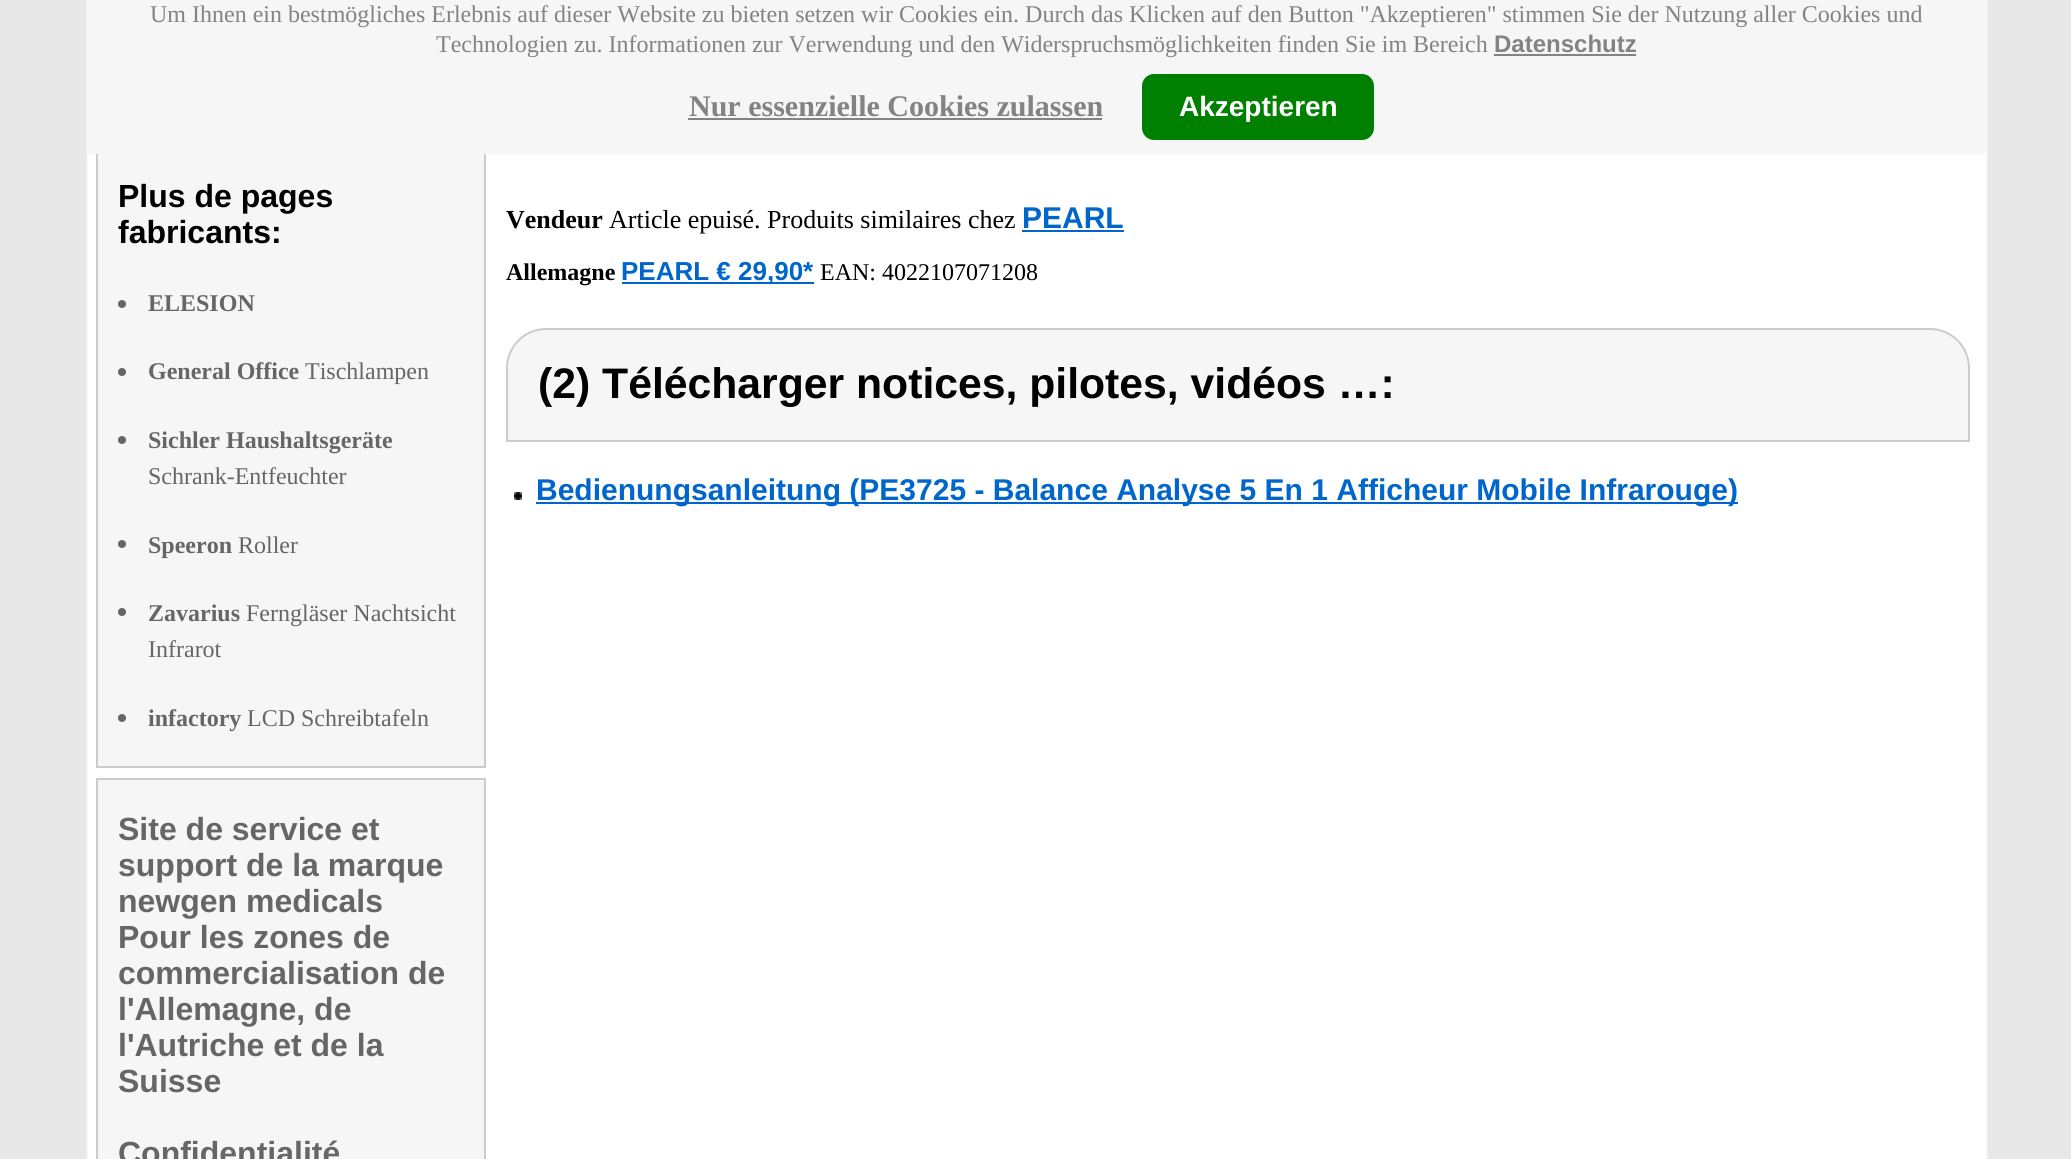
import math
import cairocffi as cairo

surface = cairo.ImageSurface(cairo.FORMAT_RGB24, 2071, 1159)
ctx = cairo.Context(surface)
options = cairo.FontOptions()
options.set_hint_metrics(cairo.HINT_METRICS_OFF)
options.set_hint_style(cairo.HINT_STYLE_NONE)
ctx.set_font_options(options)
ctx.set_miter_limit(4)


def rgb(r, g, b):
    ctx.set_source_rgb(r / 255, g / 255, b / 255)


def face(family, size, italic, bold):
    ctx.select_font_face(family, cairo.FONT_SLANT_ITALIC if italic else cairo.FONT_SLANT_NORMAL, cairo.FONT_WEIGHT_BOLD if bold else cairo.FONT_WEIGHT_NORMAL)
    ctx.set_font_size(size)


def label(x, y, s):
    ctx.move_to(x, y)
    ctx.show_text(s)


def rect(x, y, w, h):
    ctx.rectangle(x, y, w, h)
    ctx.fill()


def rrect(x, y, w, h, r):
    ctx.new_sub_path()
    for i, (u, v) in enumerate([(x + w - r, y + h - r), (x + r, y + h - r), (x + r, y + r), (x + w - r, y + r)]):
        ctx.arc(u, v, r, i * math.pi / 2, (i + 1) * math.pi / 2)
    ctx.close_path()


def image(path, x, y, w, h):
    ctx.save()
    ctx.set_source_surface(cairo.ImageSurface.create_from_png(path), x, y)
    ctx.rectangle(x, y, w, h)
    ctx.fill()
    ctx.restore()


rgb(255, 255, 255)
ctx.paint()
image('image0.png', 0, 0, 2071, 1159)
rgb(246, 246, 246)
rect(98, 154, 386, 612)
ctx.rectangle(97, 149, 388, 618)
rgb(204, 204, 204)
ctx.stroke()
rgb(246, 246, 246)
rect(86, 0, 1900, 154)
face('Liberation Serif', 24, 0, 0)
rgb(131, 131, 131)
label(150, 22, 'Um Ihnen ein bestmögliches Erlebnis auf dieser Website zu bieten setzen wir Cookies ein. Durch das Klicken auf den Button "Akzeptieren" stimmen Sie der Nutzung aller Cookies und')
label(436, 52, 'Technologien zu. Informationen zur Verwendung und den Widerspruchsmöglichkeiten finden Sie im Bereich')
rect(1494, 54, 142, 2)
face('Liberation Sans', 24, 0, 1)
label(1494, 52, 'Datenschutz')
face('Liberation Serif', 30, 0, 1)
label(689, 116, 'Nur essenzielle Cookies zulassen')
rect(688, 118, 414, 2)
rgb(0, 128, 0)
rrect(1142, 74, 232, 66, 12)
ctx.fill()
face('Liberation Sans', 28, 0, 1)
rgb(255, 255, 255)
label(1179, 116, 'Akzeptieren')
face('Liberation Sans', 32, 0, 1)
rgb(0, 0, 0)
label(118, 207, 'Plus de pages')
label(118, 243, 'fabricants:')
rgb(102, 102, 102)
ctx.new_path()
ctx.arc(122, 304, 4, 0, 2 * math.pi)
ctx.fill()
face('Liberation Serif', 24, 0, 1)
label(148, 311, 'ELESION')
ctx.new_path()
ctx.arc(122, 372, 4, 0, 2 * math.pi)
ctx.fill()
label(148, 379, 'General Office')
face('Liberation Serif', 24, 0, 0)
label(305, 379, 'Tischlampen')
ctx.new_path()
ctx.arc(122, 440, 4, 0, 2 * math.pi)
ctx.fill()
face('Liberation Serif', 24, 0, 1)
label(148, 448, 'Sichler Haushaltsgeräte')
face('Liberation Serif', 24, 0, 0)
label(148, 484, 'Schrank-Entfeuchter')
ctx.new_path()
ctx.arc(122, 544, 4, 0, 2 * math.pi)
ctx.fill()
face('Liberation Serif', 24, 0, 1)
label(148, 553, 'Speeron')
face('Liberation Serif', 24, 0, 0)
label(238, 553, 'Roller')
ctx.new_path()
ctx.arc(122, 612, 4, 0, 2 * math.pi)
ctx.fill()
face('Liberation Serif', 24, 0, 1)
label(148, 621, 'Zavarius')
face('Liberation Serif', 24, 0, 0)
label(246, 621, 'Ferngläser Nachtsicht')
label(148, 657, 'Infrarot')
ctx.new_path()
ctx.arc(122, 718, 4, 0, 2 * math.pi)
ctx.fill()
face('Liberation Serif', 24, 0, 1)
label(148, 726, 'infactory')
face('Liberation Serif', 24, 0, 0)
label(247, 726, 'LCD Schreibtafeln')
rgb(246, 246, 246)
ctx.rectangle(97, 779, 388, 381)
ctx.fill_preserve()
rgb(204, 204, 204)
ctx.stroke()
face('Liberation Sans', 32, 0, 1)
rgb(102, 102, 102)
label(118, 840, 'Site de service et')
label(118, 876, 'support de la marque')
label(118, 912, 'newgen medicals')
label(118, 948, 'Pour les zones de')
label(118, 984, 'commercialisation de')
label(118, 1020, 'l\'Allemagne, de')
label(118, 1056, 'l\'Autriche et de la')
label(118, 1092, 'Suisse')
label(118, 1164, 'Confidentialité')
face('Liberation Serif', 26, 0, 1)
rgb(0, 0, 0)
label(506, 228, 'Vendeur')
face('Liberation Serif', 26, 0, 0)
label(609, 228, 'Article epuisé. Produits similaires chez')
face('Liberation Sans', 30, 0, 1)
rgb(0, 102, 204)
label(1022, 228, 'PEARL')
rect(1022, 230, 102, 2)
face('Liberation Serif', 24, 0, 1)
rgb(0, 0, 0)
label(506, 280, 'Allemagne')
rgb(0, 102, 204)
rect(622, 282, 192, 2)
face('Liberation Sans', 26, 0, 1)
label(621, 280, 'PEARL € 29,90*')
face('Liberation Serif', 24, 0, 0)
rgb(0, 0, 0)
label(820, 280, 'EAN: 4022107071208')
rgb(246, 246, 246)
ctx.new_path()
ctx.move_to(546, 329)
ctx.line_to(1930, 329)
ctx.curve_to(1951.5, 329, 1969, 346.5, 1969, 368)
ctx.line_to(1969, 441)
ctx.line_to(507, 441)
ctx.line_to(507, 368)
ctx.curve_to(507, 346.5, 524.5, 329, 546, 329)
ctx.close_path()
ctx.fill_preserve()
rgb(204, 204, 204)
ctx.stroke()
face('Liberation Sans', 42.7, 0, 1)
rgb(0, 0, 0)
label(538, 398, '(2) Télécharger notices, pilotes, vidéos …:')
image('image1.png', 514, 492, 8, 8)
rgb(0, 102, 204)
rect(536, 502, 1202, 2)
face('Liberation Sans', 30, 0, 1)
label(536, 500, 'Bedienungsanleitung (PE3725 - Balance Analyse 5 En 1 Afficheur Mobile Infrarouge)')
surface.write_to_png('render.png')
